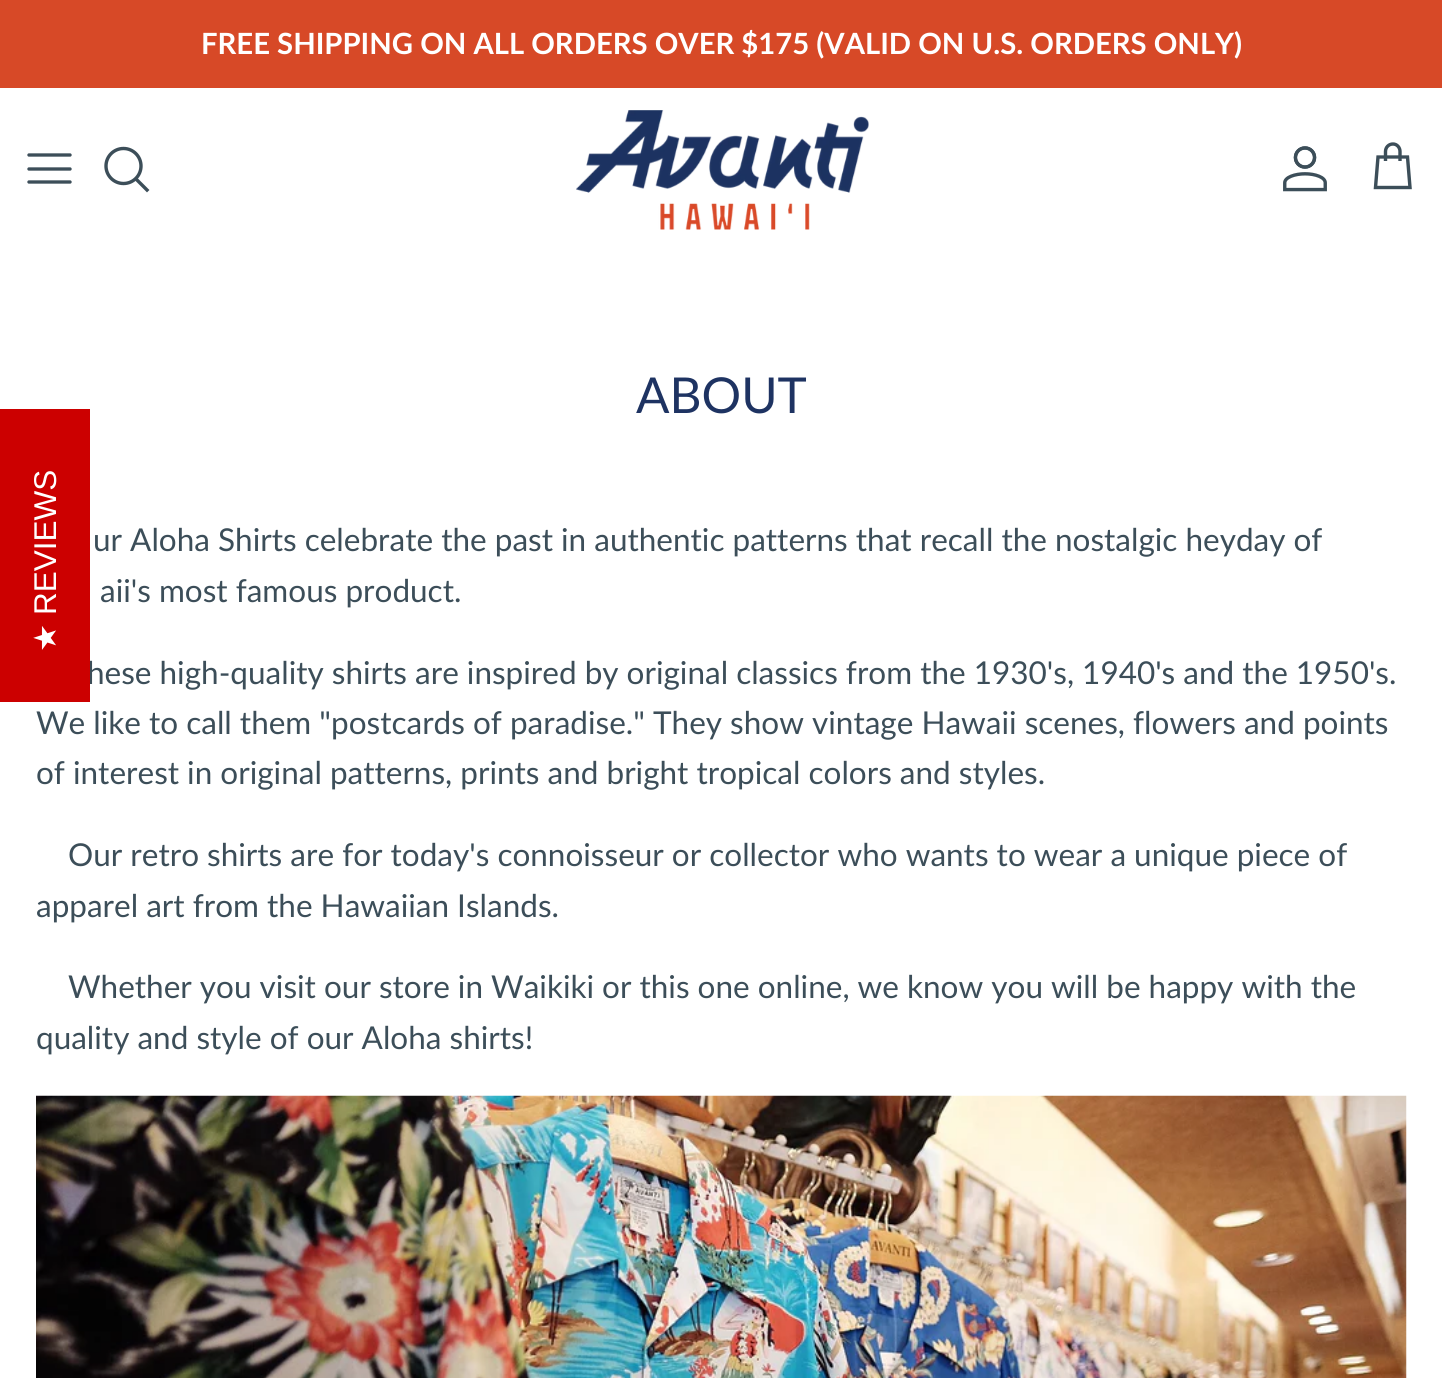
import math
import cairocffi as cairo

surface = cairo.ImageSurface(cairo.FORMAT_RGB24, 1442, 1378)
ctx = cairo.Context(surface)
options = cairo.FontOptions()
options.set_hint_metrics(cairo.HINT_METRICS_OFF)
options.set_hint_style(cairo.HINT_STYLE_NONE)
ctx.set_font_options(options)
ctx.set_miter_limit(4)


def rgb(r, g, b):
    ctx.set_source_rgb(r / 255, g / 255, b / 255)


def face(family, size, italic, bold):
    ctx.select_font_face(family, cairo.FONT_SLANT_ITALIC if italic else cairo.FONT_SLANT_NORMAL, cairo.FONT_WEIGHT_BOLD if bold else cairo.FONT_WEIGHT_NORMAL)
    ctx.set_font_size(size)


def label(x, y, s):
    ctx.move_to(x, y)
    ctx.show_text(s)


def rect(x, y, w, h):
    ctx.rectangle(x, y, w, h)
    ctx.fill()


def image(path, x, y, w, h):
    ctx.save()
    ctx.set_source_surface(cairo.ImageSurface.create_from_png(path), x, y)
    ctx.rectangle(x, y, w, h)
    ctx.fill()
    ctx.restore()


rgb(255, 255, 255)
ctx.paint()
rgb(215, 73, 39)
rect(0, 0, 1442, 88)
face('Lato', 29.25, 0, 1)
rgb(255, 255, 255)
label(201, 54, 'FREE SHIPPING ON ALL ORDERS OVER $175 (VALID ON U.S. ORDERS ONLY)')
ctx.new_path()
ctx.move_to(29, 169)
ctx.line_to(70, 169)
ctx.move_to(29, 155)
ctx.line_to(70, 155)
ctx.move_to(29, 182)
ctx.line_to(70, 182)
rgb(60, 78, 89)
ctx.set_line_width(3.4)
ctx.set_line_cap(cairo.LINE_CAP_ROUND)
ctx.set_line_join(cairo.LINE_JOIN_ROUND)
ctx.stroke()
ctx.arc(123.5, 166, 17.5, 0, 2 * math.pi)
ctx.set_line_cap(cairo.LINE_CAP_BUTT)
ctx.set_line_join(cairo.LINE_JOIN_MITER)
ctx.stroke()
ctx.new_path()
ctx.move_to(137, 180)
ctx.line_to(147, 190)
ctx.set_line_cap(cairo.LINE_CAP_SQUARE)
ctx.stroke()
image('image0.png', 576, 110, 293, 120)
image('image1.png', 1283, 146, 44, 46)
ctx.new_path()
ctx.move_to(1400, 161)
ctx.line_to(1400, 151.5)
ctx.curve_to(1400, 147.5, 1397, 144, 1393, 144)
ctx.curve_to(1388.5, 144, 1385.5, 147.5, 1385.5, 151.5)
ctx.line_to(1385.5, 161)
ctx.move_to(1378, 157)
ctx.line_to(1407.5, 157)
ctx.line_to(1410, 187.5)
ctx.line_to(1375.5, 187.5)
ctx.close_path()
ctx.set_line_cap(cairo.LINE_CAP_BUTT)
ctx.stroke()
face('Lato', 49.5, 0, 0)
rgb(30, 51, 98)
label(636, 413, 'ABOUT')
face('Lato', 31.5, 0, 0)
rgb(60, 78, 89)
label(93, 551, 'ur Aloha Shirts celebrate the past in authentic patterns that recall the nostalgic heyday of')
label(100, 602, 'aii\'s most famous product.')
label(87, 684, 'hese high-quality shirts are inspired by original classics from the 1930\'s, 1940\'s and the 1950\'s.')
label(36, 734, 'We like to call them "postcards of paradise." They show vintage Hawaii scenes, flowers and points')
label(36, 784, 'of interest in original patterns, prints and bright tropical colors and styles.')
label(68, 866, 'Our retro shirts are for today\'s connoisseur or collector who wants to wear a unique piece of')
label(36, 917, 'apparel art from the Hawaiian Islands.')
label(68, 998, 'Whether you visit our store in Waikiki or this one online, we know you will be happy with the')
label(36, 1049, 'quality and style of our Aloha shirts!')
image('image2.png', 36, 1095, 1371, 283)
rgb(204, 0, 0)
rect(0, 409, 90, 293)
face('Liberation Sans', 31.5, 0, 0)
rgb(255, 255, 255)
ctx.save()
ctx.translate(56, 615)
ctx.rotate(-90 * math.pi / 180)
label(0, 0, 'REVIEWS')
ctx.restore()
face('DejaVu Sans', 31.5, 0, 0)
ctx.save()
ctx.translate(56, 652)
ctx.rotate(-90 * math.pi / 180)
label(0, 0, '★')
ctx.restore()
surface.write_to_png('render.png')
